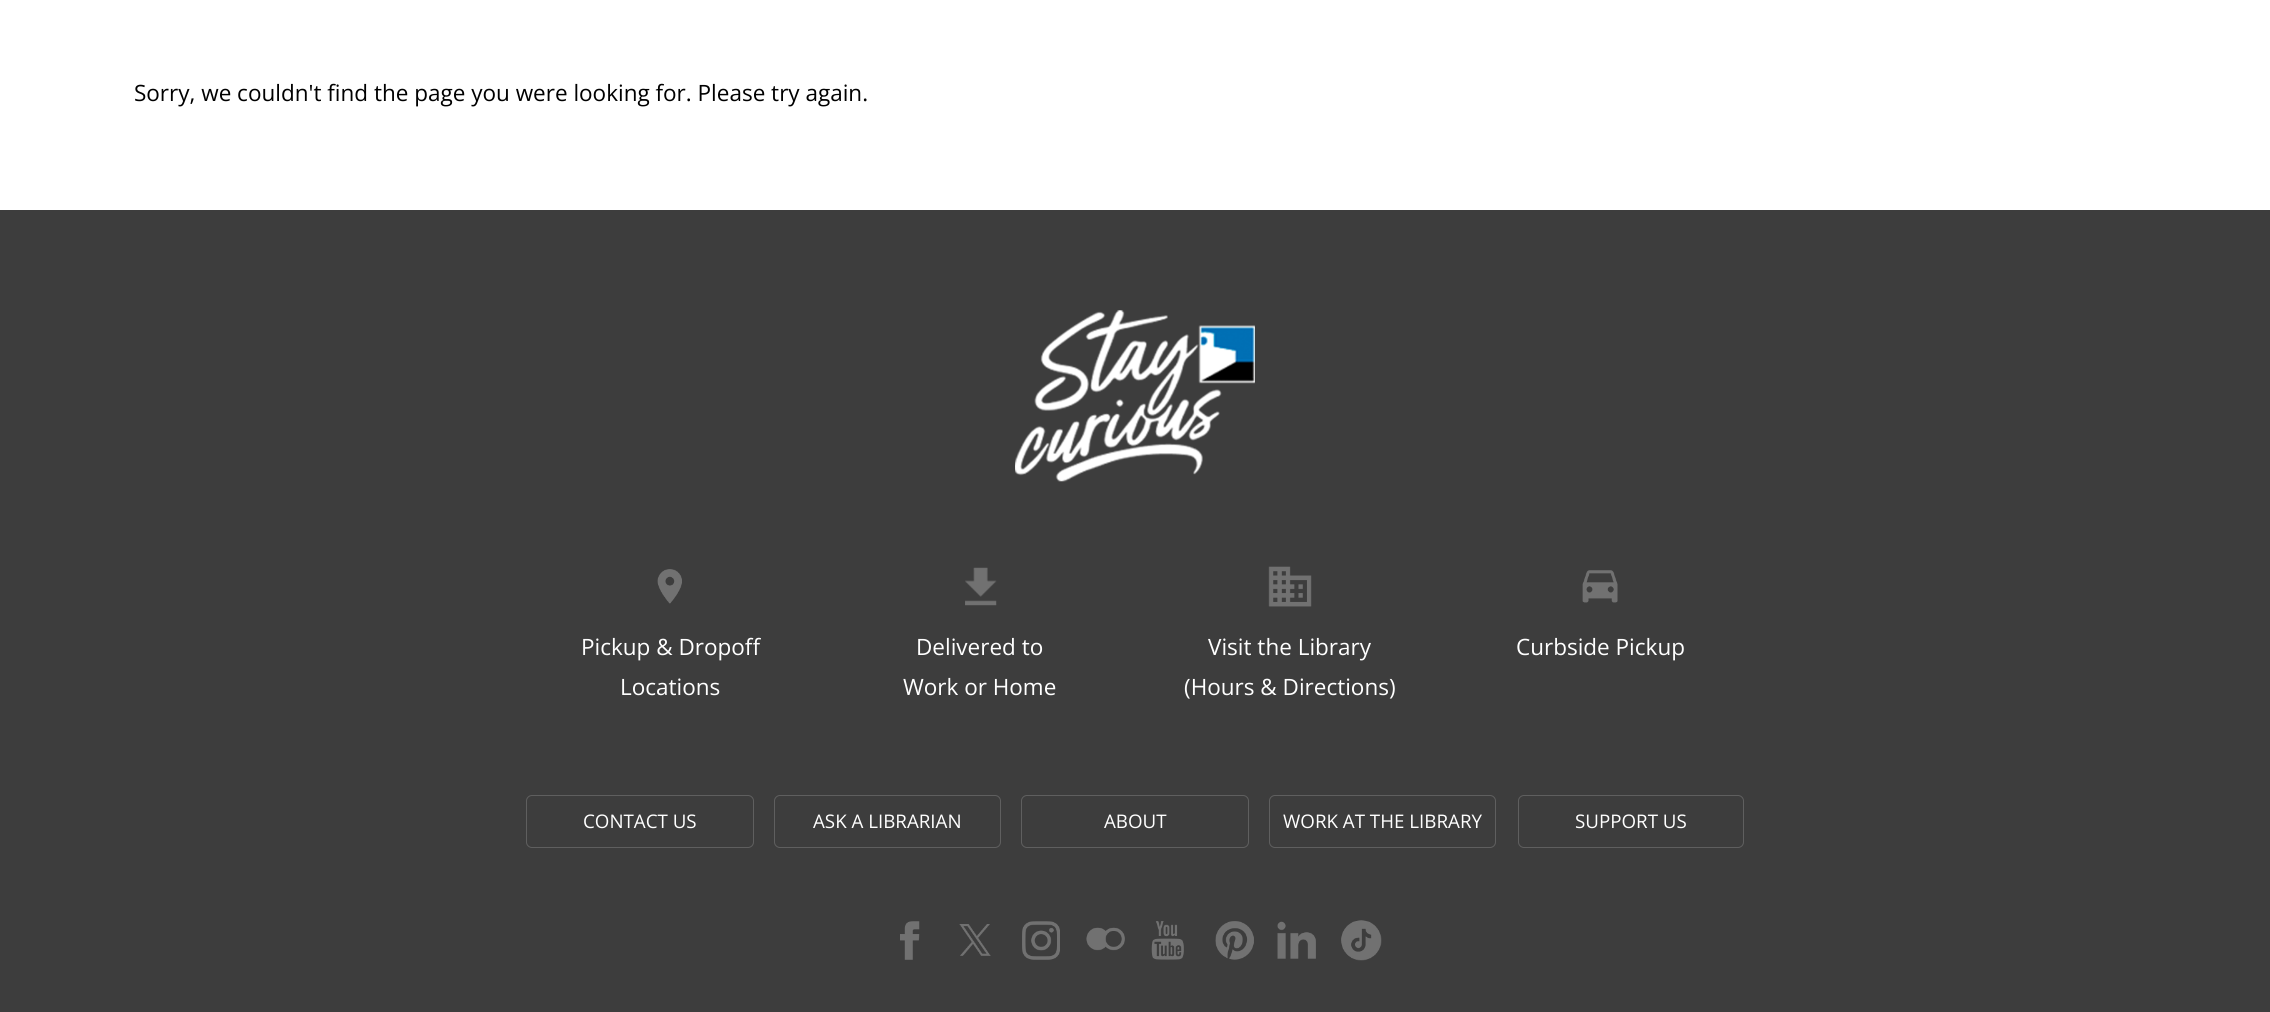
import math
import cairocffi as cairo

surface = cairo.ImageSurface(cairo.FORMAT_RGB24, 2270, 1012)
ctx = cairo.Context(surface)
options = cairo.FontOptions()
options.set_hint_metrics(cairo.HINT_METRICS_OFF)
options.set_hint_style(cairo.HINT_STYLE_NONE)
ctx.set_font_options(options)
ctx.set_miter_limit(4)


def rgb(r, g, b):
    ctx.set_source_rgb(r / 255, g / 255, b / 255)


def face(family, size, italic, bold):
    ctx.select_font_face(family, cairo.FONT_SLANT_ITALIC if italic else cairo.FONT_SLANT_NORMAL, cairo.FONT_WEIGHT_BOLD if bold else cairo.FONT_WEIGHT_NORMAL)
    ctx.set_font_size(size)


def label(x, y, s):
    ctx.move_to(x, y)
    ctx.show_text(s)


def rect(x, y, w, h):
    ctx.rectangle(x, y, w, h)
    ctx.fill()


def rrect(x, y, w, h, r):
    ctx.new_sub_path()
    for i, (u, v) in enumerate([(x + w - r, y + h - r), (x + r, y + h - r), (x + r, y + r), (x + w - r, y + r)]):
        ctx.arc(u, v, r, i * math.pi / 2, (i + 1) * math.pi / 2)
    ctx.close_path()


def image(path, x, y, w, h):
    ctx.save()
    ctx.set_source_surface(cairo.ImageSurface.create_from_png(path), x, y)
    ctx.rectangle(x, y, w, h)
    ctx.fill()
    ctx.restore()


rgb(255, 255, 255)
ctx.paint()
face('Open Sans', 22.5, 0, 0)
rgb(0, 0, 0)
label(134, 101, 'Sorry, we couldn\'t find the page you were looking for. Please try again.')
rgb(61, 61, 61)
rect(0, 210, 2270, 802)
image('image0.png', 1015, 310, 240, 172)
image('image1.png', 657, 569, 25, 35)
rgb(255, 255, 255)
label(581, 655, 'Pickup & Dropoff')
label(620, 695, 'Locations')
image('image2.png', 965, 567, 32, 39)
label(916, 655, 'Delivered to')
label(903, 695, 'Work or Home')
image('image3.png', 1268, 566, 44, 41)
label(1208, 655, 'Visit the Library')
label(1184, 695, '(Hours & Directions)')
image('image4.png', 1582, 570, 36, 33)
label(1516, 655, 'Curbside Pickup')
rrect(526.5, 795.5, 227, 52, 5.5)
rgb(95, 95, 95)
ctx.set_line_width(1)
ctx.stroke()
face('Open Sans', 18.75, 0, 0)
rgb(255, 255, 255)
label(583, 828, 'CONTACT US')
rrect(774.5, 795.5, 226, 52, 5.5)
rgb(95, 95, 95)
ctx.stroke()
rgb(255, 255, 255)
label(813, 828, 'ASK A LIBRARIAN')
rrect(1021.5, 795.5, 227, 52, 5.5)
rgb(95, 95, 95)
ctx.stroke()
rgb(255, 255, 255)
label(1104, 828, 'ABOUT')
rrect(1269.5, 795.5, 226, 52, 5.5)
rgb(95, 95, 95)
ctx.stroke()
rgb(255, 255, 255)
label(1283, 828, 'WORK AT THE LIBRARY')
rrect(1518.5, 795.5, 225, 52, 5.5)
rgb(95, 95, 95)
ctx.stroke()
rgb(255, 255, 255)
label(1575, 828, 'SUPPORT US')
image('image5.png', 900, 921, 20, 39)
image('image6.png', 959, 924, 32, 32)
image('image7.png', 1022, 921, 38, 39)
image('image8.png', 1086, 927, 39, 24)
image('image9.png', 1151, 921, 33, 39)
image('image10.png', 1215, 921, 39, 39)
image('image11.png', 1277, 921, 39, 38)
image('image12.png', 1341, 920, 41, 41)
surface.write_to_png('render.png')
